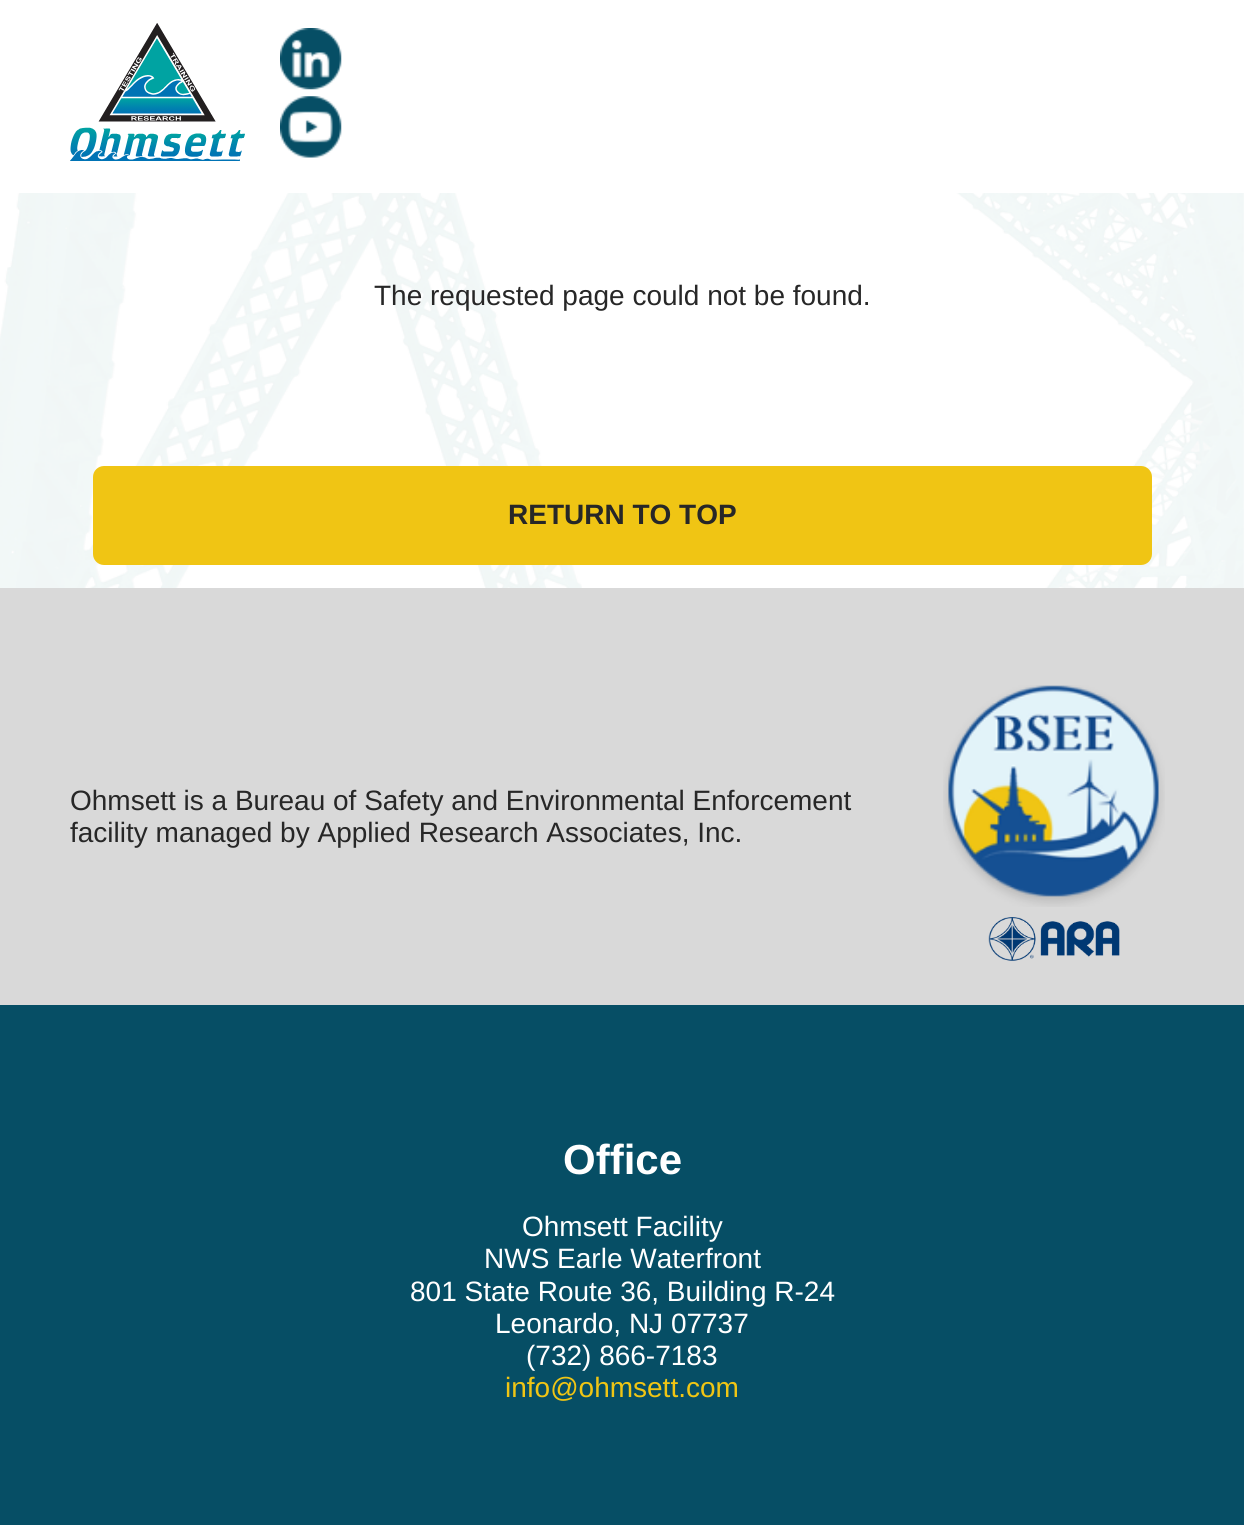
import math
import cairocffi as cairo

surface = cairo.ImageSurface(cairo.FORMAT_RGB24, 1244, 1525)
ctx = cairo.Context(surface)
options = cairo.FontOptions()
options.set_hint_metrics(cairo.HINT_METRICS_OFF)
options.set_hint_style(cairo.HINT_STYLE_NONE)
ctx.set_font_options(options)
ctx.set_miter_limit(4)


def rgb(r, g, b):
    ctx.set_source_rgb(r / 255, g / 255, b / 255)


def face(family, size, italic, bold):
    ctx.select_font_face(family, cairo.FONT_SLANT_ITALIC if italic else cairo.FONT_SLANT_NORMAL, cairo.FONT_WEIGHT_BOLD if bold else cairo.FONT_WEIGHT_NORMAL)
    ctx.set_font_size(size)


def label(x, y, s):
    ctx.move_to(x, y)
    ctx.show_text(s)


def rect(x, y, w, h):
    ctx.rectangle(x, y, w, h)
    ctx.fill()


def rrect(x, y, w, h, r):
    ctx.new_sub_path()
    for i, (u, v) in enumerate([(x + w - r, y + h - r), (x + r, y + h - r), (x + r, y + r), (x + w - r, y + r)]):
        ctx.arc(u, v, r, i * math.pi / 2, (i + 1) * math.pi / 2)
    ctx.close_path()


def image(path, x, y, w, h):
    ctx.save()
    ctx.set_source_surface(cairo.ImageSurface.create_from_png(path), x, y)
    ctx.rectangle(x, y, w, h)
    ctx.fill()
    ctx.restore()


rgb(255, 255, 255)
ctx.paint()
image('image0.png', 0, 193, 1244, 395)
image('image1.png', 70, 23, 175, 138)
image('image2.png', 280, 28, 62, 62)
image('image3.png', 280, 96, 62, 62)
face('Liberation Sans', 28, 0, 0)
rgb(39, 39, 39)
label(374, 305, 'The requested page could not be found.')
rgb(240, 197, 20)
rrect(93, 466, 1059, 99, 11)
ctx.fill()
face('Liberation Sans', 28, 0, 1)
rgb(39, 39, 39)
label(508, 524, 'RETURN TO TOP')
rgb(217, 217, 217)
rect(0, 588, 1244, 417)
face('Liberation Sans', 28, 0, 0)
rgb(39, 39, 39)
label(70, 810, 'Ohmsett is a Bureau of Safety and Environmental Enforcement')
label(70, 842, 'facility managed by Applied Research Associates, Inc.')
image('image4.png', 943, 685, 222, 222)
image('image5.png', 988, 917, 132, 44)
rgb(6, 78, 101)
rect(0, 1005, 1244, 520)
face('Liberation Sans', 42, 0, 1)
rgb(255, 255, 255)
label(563, 1174, 'Office')
face('Liberation Sans', 28, 0, 0)
label(522, 1236, 'Ohmsett Facility')
label(484, 1268, 'NWS Earle Waterfront')
label(410, 1301, '801 State Route 36, Building R-24')
label(495, 1333, 'Leonardo, NJ 07737')
label(526, 1365, '(732) 866-7183')
rgb(240, 197, 20)
label(505, 1397, 'info@ohmsett.com')
surface.write_to_png('render.png')
